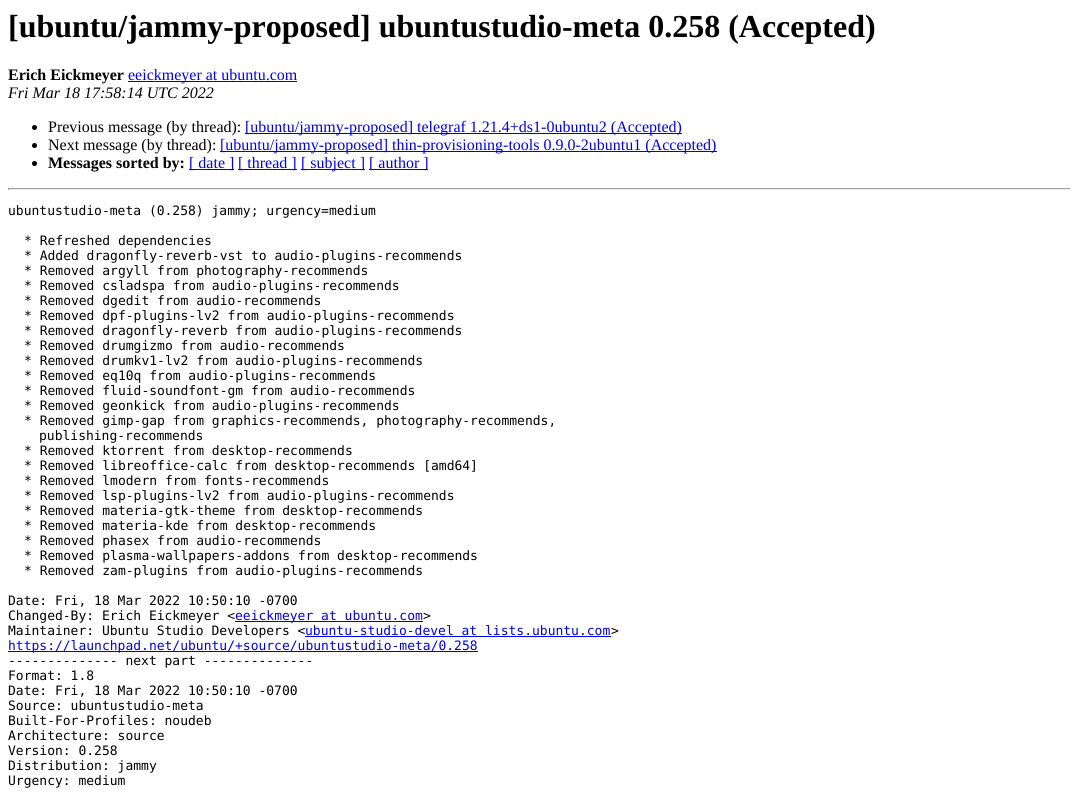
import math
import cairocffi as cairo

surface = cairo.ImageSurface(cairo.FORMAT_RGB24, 1079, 794)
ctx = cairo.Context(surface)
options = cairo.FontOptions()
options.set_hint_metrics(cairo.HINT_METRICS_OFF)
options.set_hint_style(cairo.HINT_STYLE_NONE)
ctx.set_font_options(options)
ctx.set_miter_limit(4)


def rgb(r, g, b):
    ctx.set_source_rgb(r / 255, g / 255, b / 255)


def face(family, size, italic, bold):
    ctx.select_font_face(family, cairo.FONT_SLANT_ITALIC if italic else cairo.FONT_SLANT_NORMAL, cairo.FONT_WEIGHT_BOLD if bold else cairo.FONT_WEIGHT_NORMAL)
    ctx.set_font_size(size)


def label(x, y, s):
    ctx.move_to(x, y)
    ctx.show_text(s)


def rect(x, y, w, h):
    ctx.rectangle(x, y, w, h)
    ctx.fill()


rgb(255, 255, 255)
ctx.paint()
face('Liberation Serif', 32, 0, 1)
rgb(0, 0, 0)
label(8, 37, '[ubuntu/jammy-proposed] ubuntustudio-meta 0.258 (Accepted)')
face('Liberation Serif', 16, 0, 1)
label(8, 80, 'Erich Eickmeyer')
rgb(0, 0, 238)
rect(128, 81, 169, 1)
face('Liberation Serif', 16, 0, 0)
label(128, 80, 'eeickmeyer at ubuntu.com')
face('Liberation Serif', 16, 1, 0)
rgb(0, 0, 0)
label(8, 98, 'Fri Mar 18 17:58:14 UTC 2022')
ctx.new_path()
ctx.arc(34.5, 127.5, 2.5, 0, 2 * math.pi)
ctx.fill()
face('Liberation Serif', 16, 0, 0)
label(48, 132, 'Previous message (by thread):')
rgb(0, 0, 238)
rect(245, 133, 437, 1)
label(245, 132, '[ubuntu/jammy-proposed] telegraf 1.21.4+ds1-0ubuntu2 (Accepted)')
rgb(0, 0, 0)
ctx.new_path()
ctx.arc(34.5, 145.5, 2.5, 0, 2 * math.pi)
ctx.fill()
label(48, 150, 'Next message (by thread):')
rgb(0, 0, 238)
rect(220, 151, 497, 1)
label(220, 150, '[ubuntu/jammy-proposed] thin-provisioning-tools 0.9.0-2ubuntu1 (Accepted)')
rgb(0, 0, 0)
ctx.new_path()
ctx.arc(34.5, 163.5, 2.5, 0, 2 * math.pi)
ctx.fill()
face('Liberation Serif', 16, 0, 1)
label(48, 168, 'Messages sorted by:')
rgb(0, 0, 238)
rect(189, 169, 45, 1)
face('Liberation Serif', 16, 0, 0)
label(189, 168, '[ date ]')
rect(238, 169, 59, 1)
label(238, 168, '[ thread ]')
rect(301, 169, 64, 1)
label(301, 168, '[ subject ]')
rect(369, 169, 59, 1)
label(369, 168, '[ author ]')
rgb(159, 159, 159)
rect(8, 188, 1063, 1)
rgb(238, 238, 238)
rect(1070, 188, 1, 2)
rect(8, 189, 1063, 1)
rgb(159, 159, 159)
rect(8, 188, 1, 2)
face('DejaVu Sans Mono', 13, 0, 0)
rgb(0, 0, 0)
label(8, 215, 'ubuntustudio-meta (0.258) jammy; urgency=medium')
label(24, 245, '* Refreshed dependencies')
label(24, 260, '* Added dragonfly-reverb-vst to audio-plugins-recommends')
label(24, 275, '* Removed argyll from photography-recommends')
label(24, 290, '* Removed csladspa from audio-plugins-recommends')
label(24, 305, '* Removed dgedit from audio-recommends')
label(24, 320, '* Removed dpf-plugins-lv2 from audio-plugins-recommends')
label(24, 335, '* Removed dragonfly-reverb from audio-plugins-recommends')
label(24, 350, '* Removed drumgizmo from audio-recommends')
label(24, 365, '* Removed drumkv1-lv2 from audio-plugins-recommends')
label(24, 380, '* Removed eq10q from audio-plugins-recommends')
label(24, 395, '* Removed fluid-soundfont-gm from audio-recommends')
label(24, 410, '* Removed geonkick from audio-plugins-recommends')
label(24, 425, '* Removed gimp-gap from graphics-recommends, photography-recommends,')
label(39, 440, 'publishing-recommends')
label(24, 455, '* Removed ktorrent from desktop-recommends')
label(24, 470, '* Removed libreoffice-calc from desktop-recommends [amd64]')
label(24, 485, '* Removed lmodern from fonts-recommends')
label(24, 500, '* Removed lsp-plugins-lv2 from audio-plugins-recommends')
label(24, 515, '* Removed materia-gtk-theme from desktop-recommends')
label(24, 530, '* Removed materia-kde from desktop-recommends')
label(24, 545, '* Removed phasex from audio-recommends')
label(24, 560, '* Removed plasma-wallpapers-addons from desktop-recommends')
label(24, 575, '* Removed zam-plugins from audio-plugins-recommends')
label(8, 605, 'Date: Fri, 18 Mar 2022 10:50:10 -0700')
label(8, 620, 'Changed-By: Erich Eickmeyer <')
rgb(0, 0, 238)
rect(235, 621, 188, 1)
label(235, 620, 'eeickmeyer at ubuntu.com')
rgb(0, 0, 0)
label(423, 620, '>')
label(8, 635, 'Maintainer: Ubuntu Studio Developers <')
rgb(0, 0, 238)
label(305, 635, 'ubuntu-studio-devel at lists.ubuntu.com')
rect(305, 636, 306, 1)
rgb(0, 0, 0)
label(611, 635, '>')
rgb(0, 0, 238)
rect(8, 651, 470, 1)
label(8, 650, 'https://launchpad.net/ubuntu/+source/ubuntustudio-meta/0.258')
rgb(0, 0, 0)
label(8, 665, '-------------- next part --------------')
label(8, 680, 'Format: 1.8')
label(8, 695, 'Date: Fri, 18 Mar 2022 10:50:10 -0700')
label(8, 710, 'Source: ubuntustudio-meta')
label(8, 725, 'Built-For-Profiles: noudeb')
label(8, 740, 'Architecture: source')
label(8, 755, 'Version: 0.258')
label(8, 770, 'Distribution: jammy')
label(8, 785, 'Urgency: medium')
surface.write_to_png('render.png')
